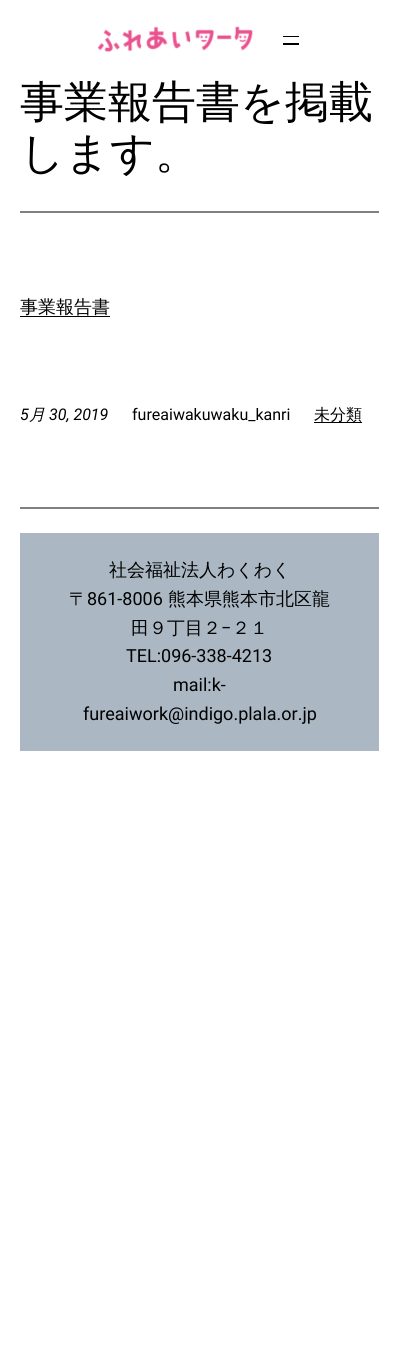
import math
import cairocffi as cairo

surface = cairo.ImageSurface(cairo.FORMAT_RGB24, 399, 1362)
ctx = cairo.Context(surface)
options = cairo.FontOptions()
options.set_hint_metrics(cairo.HINT_METRICS_OFF)
options.set_hint_style(cairo.HINT_STYLE_NONE)
ctx.set_font_options(options)
ctx.set_miter_limit(4)


def rgb(r, g, b):
    ctx.set_source_rgb(r / 255, g / 255, b / 255)


def face(family, size, italic, bold):
    ctx.select_font_face(family, cairo.FONT_SLANT_ITALIC if italic else cairo.FONT_SLANT_NORMAL, cairo.FONT_WEIGHT_BOLD if bold else cairo.FONT_WEIGHT_NORMAL)
    ctx.set_font_size(size)


def label(x, y, s):
    ctx.move_to(x, y)
    ctx.show_text(s)


def rect(x, y, w, h):
    ctx.rectangle(x, y, w, h)
    ctx.fill()


def image(path, x, y, w, h):
    ctx.save()
    ctx.set_source_surface(cairo.ImageSurface.create_from_png(path), x, y)
    ctx.rectangle(x, y, w, h)
    ctx.fill()
    ctx.restore()


rgb(255, 255, 255)
ctx.paint()
image('image0.png', 97, 26, 156, 26)
rgb(0, 0, 0)
rect(283, 36, 16, 1)
rect(283, 43, 16, 2)
face('WenQuanYi Zen Hei Medium', 44, 0, 0)
label(20, 117, '事業報告書を掲載')
label(20, 168, 'します。')
rgb(128, 128, 128)
rect(20, 211, 359, 2)
face('WenQuanYi Zen Hei Medium', 18, 0, 0)
rgb(0, 0, 0)
label(20, 313, '事業報告書')
rect(20, 316, 90, 1)
face('Roboto', 16, 1, 0)
label(20, 420, '5')
face('WenQuanYi Zen Hei Medium', 16, 1, 0)
label(29, 420, '月')
face('Roboto', 16, 1, 0)
label(49, 420, '30, 2019')
face('Roboto', 16, 0, 0)
label(132, 420, 'fureaiwakuwaku_kanri')
rect(314, 422, 48, 1)
face('WenQuanYi Zen Hei Medium', 16, 0, 0)
label(314, 420, '未分類')
rgb(128, 128, 128)
rect(20, 507, 359, 2)
rgb(171, 184, 195)
rect(20, 533, 359, 218)
face('WenQuanYi Zen Hei Medium', 18, 0, 0)
rgb(0, 0, 0)
label(109, 576, '社会福祉法人わくわく')
label(69, 605, '〒')
face('Roboto', 18, 0, 0)
label(87, 605, '861-8006')
face('WenQuanYi Zen Hei Medium', 18, 0, 0)
label(168, 605, '熊本県熊本市北区龍')
label(131, 634, '田９丁目２')
face('Roboto', 18, 0, 0)
label(221, 634, '−')
face('WenQuanYi Zen Hei Medium', 18, 0, 0)
label(232, 634, '２１')
face('Roboto', 18, 0, 0)
label(126, 662, 'TEL:096-338-4213')
label(173, 691, 'mail:k-')
label(83, 720, 'fureaiwork@indigo.plala.or.jp')
surface.write_to_png('render.png')
